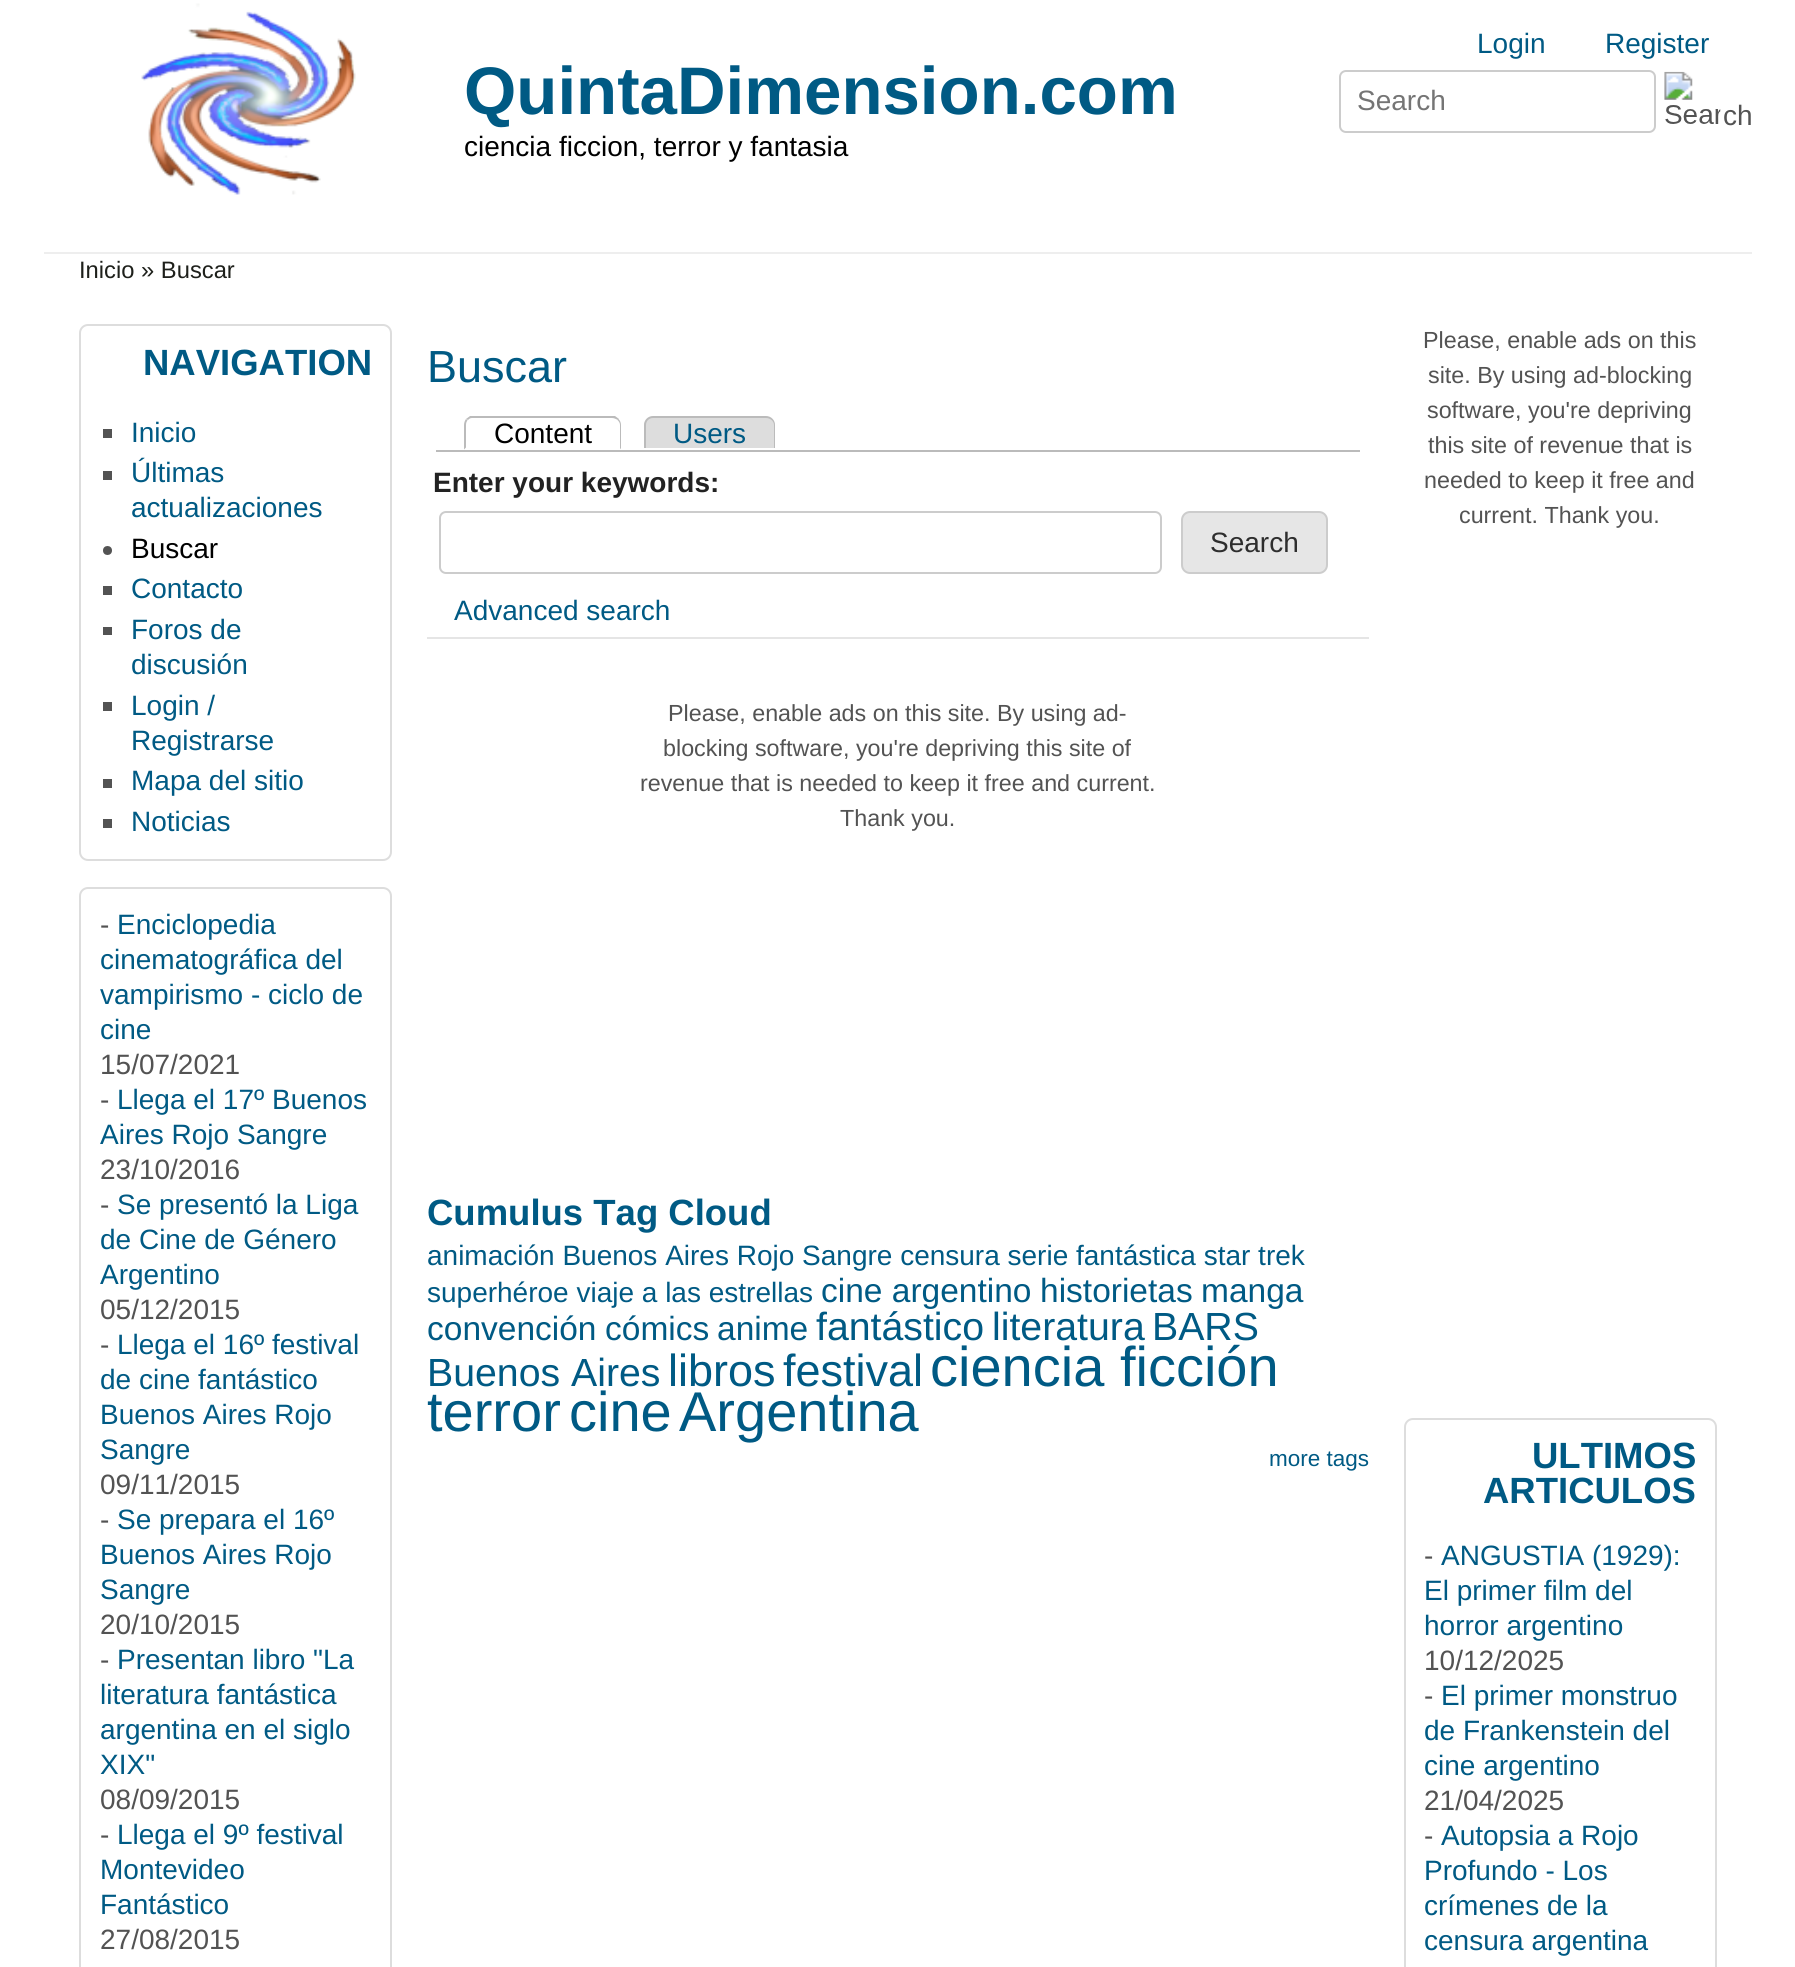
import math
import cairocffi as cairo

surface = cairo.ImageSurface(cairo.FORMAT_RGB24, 1795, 1967)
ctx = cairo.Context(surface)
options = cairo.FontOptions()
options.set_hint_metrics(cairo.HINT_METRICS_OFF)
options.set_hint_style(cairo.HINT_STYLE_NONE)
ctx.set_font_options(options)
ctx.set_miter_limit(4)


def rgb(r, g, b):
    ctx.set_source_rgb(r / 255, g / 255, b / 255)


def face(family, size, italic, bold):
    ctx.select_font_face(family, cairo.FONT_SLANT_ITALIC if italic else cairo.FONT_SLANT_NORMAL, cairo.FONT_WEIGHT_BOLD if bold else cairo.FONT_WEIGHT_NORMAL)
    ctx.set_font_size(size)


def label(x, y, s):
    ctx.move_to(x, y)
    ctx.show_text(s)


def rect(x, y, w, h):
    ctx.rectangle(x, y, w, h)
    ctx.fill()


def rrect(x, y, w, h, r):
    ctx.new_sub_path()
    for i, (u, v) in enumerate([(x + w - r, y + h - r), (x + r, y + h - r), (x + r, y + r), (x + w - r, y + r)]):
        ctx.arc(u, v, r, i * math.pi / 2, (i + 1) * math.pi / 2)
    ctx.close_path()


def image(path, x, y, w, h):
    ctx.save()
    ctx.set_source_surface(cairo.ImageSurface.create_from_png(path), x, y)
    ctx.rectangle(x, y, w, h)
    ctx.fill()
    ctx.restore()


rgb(255, 255, 255)
ctx.paint()
rgb(238, 238, 238)
rect(44, 252, 1708, 2)
image('image0.png', 141, 3, 215, 192)
face('Liberation Sans', 67.25, 0, 1)
rgb(0, 90, 132)
label(464, 114, 'QuintaDimension.com')
face('Liberation Sans', 28, 0, 0)
rgb(0, 0, 0)
label(464, 156, 'ciencia ficcion, terror y fantasia')
rgb(0, 90, 132)
label(1477, 53, 'Login')
label(1605, 53, 'Register')
rrect(1340, 71, 315, 61, 6)
rgb(204, 204, 204)
ctx.stroke()
rgb(117, 117, 117)
label(1357, 110, 'Search')
image('image1.png', 1664, 71, 57, 53)
rgb(83, 83, 83)
label(1723, 125, 'ch')
face('Liberation Sans', 23.75, 0, 0)
rgb(30, 32, 27)
label(79, 278, 'Inicio » Buscar')
rrect(80, 325, 311, 535, 8)
rgb(221, 221, 221)
ctx.stroke()
face('Liberation Sans', 36.5, 0, 1)
rgb(0, 90, 132)
label(143, 375, 'NAVIGATION')
rgb(83, 83, 83)
rect(103, 429, 9, 9)
face('Liberation Sans', 28, 0, 0)
rgb(0, 90, 132)
label(131, 442, 'Inicio')
rgb(83, 83, 83)
rect(103, 471, 9, 9)
rgb(0, 90, 132)
label(131, 482, 'Últimas')
label(131, 517, 'actualizaciones')
rgb(83, 83, 83)
ctx.new_path()
ctx.arc(107.5, 550.5, 4.5, 0, 2 * math.pi)
ctx.fill()
rgb(0, 0, 0)
label(131, 558, 'Buscar')
rgb(83, 83, 83)
rect(103, 586, 9, 9)
rgb(0, 90, 132)
label(131, 598, 'Contacto')
rgb(83, 83, 83)
rect(103, 627, 9, 8)
rgb(0, 90, 132)
label(131, 639, 'Foros de')
label(131, 674, 'discusión')
rgb(83, 83, 83)
rect(103, 702, 9, 9)
rgb(0, 90, 132)
label(131, 715, 'Login /')
label(131, 750, 'Registrarse')
rgb(83, 83, 83)
rect(103, 779, 9, 9)
rgb(0, 90, 132)
label(131, 790, 'Mapa del sitio')
rgb(83, 83, 83)
rect(103, 819, 9, 9)
rgb(0, 90, 132)
label(131, 831, 'Noticias')
rrect(80, 888, 311, 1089, 8)
rgb(221, 221, 221)
ctx.stroke()
rgb(83, 83, 83)
label(100, 934, '-')
rgb(0, 90, 132)
label(117, 934, 'Enciclopedia')
label(100, 969, 'cinematográfica del')
label(100, 1004, 'vampirismo - ciclo de')
label(100, 1039, 'cine')
rgb(83, 83, 83)
label(100, 1074, '15/07/2021')
label(100, 1109, '-')
rgb(0, 90, 132)
label(117, 1109, 'Llega el 17º Buenos')
label(100, 1144, 'Aires Rojo Sangre')
rgb(83, 83, 83)
label(100, 1179, '23/10/2016')
label(100, 1214, '-')
rgb(0, 90, 132)
label(117, 1214, 'Se presentó la Liga')
label(100, 1249, 'de Cine de Género')
label(100, 1284, 'Argentino')
rgb(83, 83, 83)
label(100, 1319, '05/12/2015')
label(100, 1354, '-')
rgb(0, 90, 132)
label(117, 1354, 'Llega el 16º festival')
label(100, 1389, 'de cine fantástico')
label(100, 1424, 'Buenos Aires Rojo')
label(100, 1459, 'Sangre')
rgb(83, 83, 83)
label(100, 1494, '09/11/2015')
label(100, 1529, '-')
rgb(0, 90, 132)
label(117, 1529, 'Se prepara el 16º')
label(100, 1564, 'Buenos Aires Rojo')
label(100, 1599, 'Sangre')
rgb(83, 83, 83)
label(100, 1634, '20/10/2015')
label(100, 1669, '-')
rgb(0, 90, 132)
label(117, 1669, 'Presentan libro "La')
label(100, 1704, 'literatura fantástica')
label(100, 1739, 'argentina en el siglo')
label(100, 1774, 'XIX"')
rgb(83, 83, 83)
label(100, 1809, '08/09/2015')
label(100, 1844, '-')
rgb(0, 90, 132)
label(117, 1844, 'Llega el 9º festival')
label(100, 1879, 'Montevideo')
label(100, 1914, 'Fantástico')
rgb(83, 83, 83)
label(100, 1949, '27/08/2015')
face('Liberation Sans', 45, 0, 0)
rgb(0, 90, 132)
label(427, 382, 'Buscar')
rgb(187, 187, 187)
rect(436, 450, 924, 2)
face('Liberation Sans', 28, 0, 0)
rgb(0, 0, 0)
label(494, 443, 'Content')
rgb(187, 187, 187)
ctx.new_path()
ctx.move_to(472, 418)
ctx.curve_to(470, 418, 469, 419, 468, 420)
ctx.line_to(466, 419)
ctx.line_to(470, 416)
ctx.line_to(615, 416)
ctx.line_to(619, 419)
ctx.line_to(618, 420)
ctx.curve_to(616, 419, 614, 418, 612, 418)
ctx.close_path()
ctx.fill()
ctx.new_path()
ctx.move_to(618.5, 419)
ctx.curve_to(620, 420.5, 621, 422.5, 621, 425)
ctx.line_to(621, 449.5)
ctx.line_to(619.5, 448)
ctx.line_to(620, 448)
ctx.line_to(620, 425)
ctx.curve_to(620, 423, 619, 421.5, 617.5, 420)
ctx.close_path()
ctx.fill()
rgb(255, 255, 255)
ctx.new_path()
ctx.move_to(464, 450)
ctx.line_to(466, 448)
ctx.line_to(620, 448)
ctx.line_to(621, 450)
ctx.close_path()
ctx.fill()
rgb(187, 187, 187)
ctx.new_path()
ctx.move_to(464, 449.5)
ctx.line_to(464, 425)
ctx.curve_to(464, 422.5, 465, 420.5, 466, 419)
ctx.line_to(467.5, 420.5)
ctx.curve_to(466.5, 421.5, 466, 423, 466, 425)
ctx.line_to(466, 447.5)
ctx.close_path()
ctx.fill()
rgb(221, 221, 221)
ctx.new_path()
ctx.move_to(653, 417)
ctx.line_to(766, 417)
ctx.curve_to(771, 417, 775, 421, 775, 426)
ctx.line_to(775, 448)
ctx.line_to(644, 448)
ctx.line_to(644, 426)
ctx.curve_to(644, 421, 648, 417, 653, 417)
ctx.close_path()
ctx.fill()
rgb(187, 187, 187)
ctx.set_fill_rule(cairo.FILL_RULE_EVEN_ODD)
ctx.new_path()
ctx.move_to(653, 416)
ctx.line_to(766, 416)
ctx.curve_to(771, 416, 775, 420, 775, 425)
ctx.line_to(775, 448)
ctx.line_to(644, 448)
ctx.line_to(644, 425)
ctx.curve_to(644, 420, 648, 416, 653, 416)
ctx.close_path()
ctx.move_to(653, 418)
ctx.line_to(766, 418)
ctx.curve_to(770, 418, 774, 421, 774, 425)
ctx.line_to(774, 448)
ctx.line_to(646, 448)
ctx.line_to(646, 425)
ctx.curve_to(646, 421, 649, 418, 653, 418)
ctx.close_path()
ctx.fill()
rgb(0, 90, 132)
label(673, 443, 'Users')
face('Liberation Sans', 28, 0, 1)
rgb(34, 34, 34)
label(433, 492, 'Enter your keywords:')
rrect(440, 512, 721, 61, 6)
rgb(204, 204, 204)
ctx.stroke()
rgb(230, 230, 230)
rrect(1182, 512, 145, 61, 8)
ctx.fill_preserve()
rgb(204, 204, 204)
ctx.stroke()
face('Liberation Sans', 28, 0, 0)
rgb(46, 46, 46)
label(1210, 552, 'Search')
rgb(229, 229, 229)
rect(427, 637, 942, 2)
rgb(0, 90, 132)
label(454, 620, 'Advanced search')
face('Liberation Sans', 23.3, 0, 0)
rgb(83, 83, 83)
label(668, 721, 'Please, enable ads on this site. By using ad-')
label(663, 756, 'blocking software, you\'re depriving this site of')
label(640, 791, 'revenue that is needed to keep it free and current.')
label(840, 826, 'Thank you.')
face('Liberation Sans', 36.5, 0, 1)
rgb(0, 90, 132)
label(427, 1225, 'Cumulus Tag Cloud')
face('Liberation Sans', 28, 0, 0)
label(427, 1265, 'animación Buenos Aires Rojo Sangre censura serie fantástica star trek')
label(427, 1302, 'superhéroe viaje a las estrellas')
face('Liberation Sans', 33.5, 0, 0)
label(821, 1302, 'cine argentino')
label(1040, 1302, 'historietas')
label(1201, 1302, 'manga')
label(427, 1340, 'convención')
label(605, 1340, 'cómics')
label(717, 1340, 'anime')
face('Liberation Sans', 39.25, 0, 0)
label(816, 1340, 'fantástico')
label(992, 1340, 'literatura')
label(1152, 1340, 'BARS')
label(427, 1386, 'Buenos Aires')
face('Liberation Sans', 45, 0, 0)
label(668, 1386, 'libros')
label(783, 1386, 'festival')
face('Liberation Sans', 56, 0, 0)
label(930, 1386, 'ciencia ficción')
label(427, 1431, 'terror')
label(569, 1431, 'cine')
label(679, 1431, 'Argentina')
face('Liberation Sans', 22.5, 0, 0)
label(1269, 1466, 'more tags')
face('Liberation Sans', 23.3, 0, 0)
rgb(83, 83, 83)
label(1423, 348, 'Please, enable ads on this')
label(1428, 383, 'site. By using ad-blocking')
label(1427, 418, 'software, you\'re depriving')
label(1428, 453, 'this site of revenue that is')
label(1424, 488, 'needed to keep it free and')
label(1459, 523, 'current. Thank you.')
rrect(1405, 1419, 311, 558, 8)
rgb(221, 221, 221)
ctx.stroke()
face('Liberation Sans', 36.5, 0, 1)
rgb(0, 90, 132)
label(1532, 1468, 'ULTIMOS')
label(1483, 1503, 'ARTICULOS')
face('Liberation Sans', 28, 0, 0)
rgb(83, 83, 83)
label(1424, 1565, '-')
rgb(0, 90, 132)
label(1441, 1565, 'ANGUSTIA (1929):')
label(1424, 1600, 'El primer film del')
label(1424, 1635, 'horror argentino')
rgb(83, 83, 83)
label(1424, 1670, '10/12/2025')
label(1424, 1705, '-')
rgb(0, 90, 132)
label(1441, 1705, 'El primer monstruo')
label(1424, 1740, 'de Frankenstein del')
label(1424, 1775, 'cine argentino')
rgb(83, 83, 83)
label(1424, 1810, '21/04/2025')
label(1424, 1845, '-')
rgb(0, 90, 132)
label(1441, 1845, 'Autopsia a Rojo')
label(1424, 1880, 'Profundo - Los')
label(1424, 1915, 'crímenes de la')
label(1424, 1950, 'censura argentina')
surface.write_to_png('render.png')
